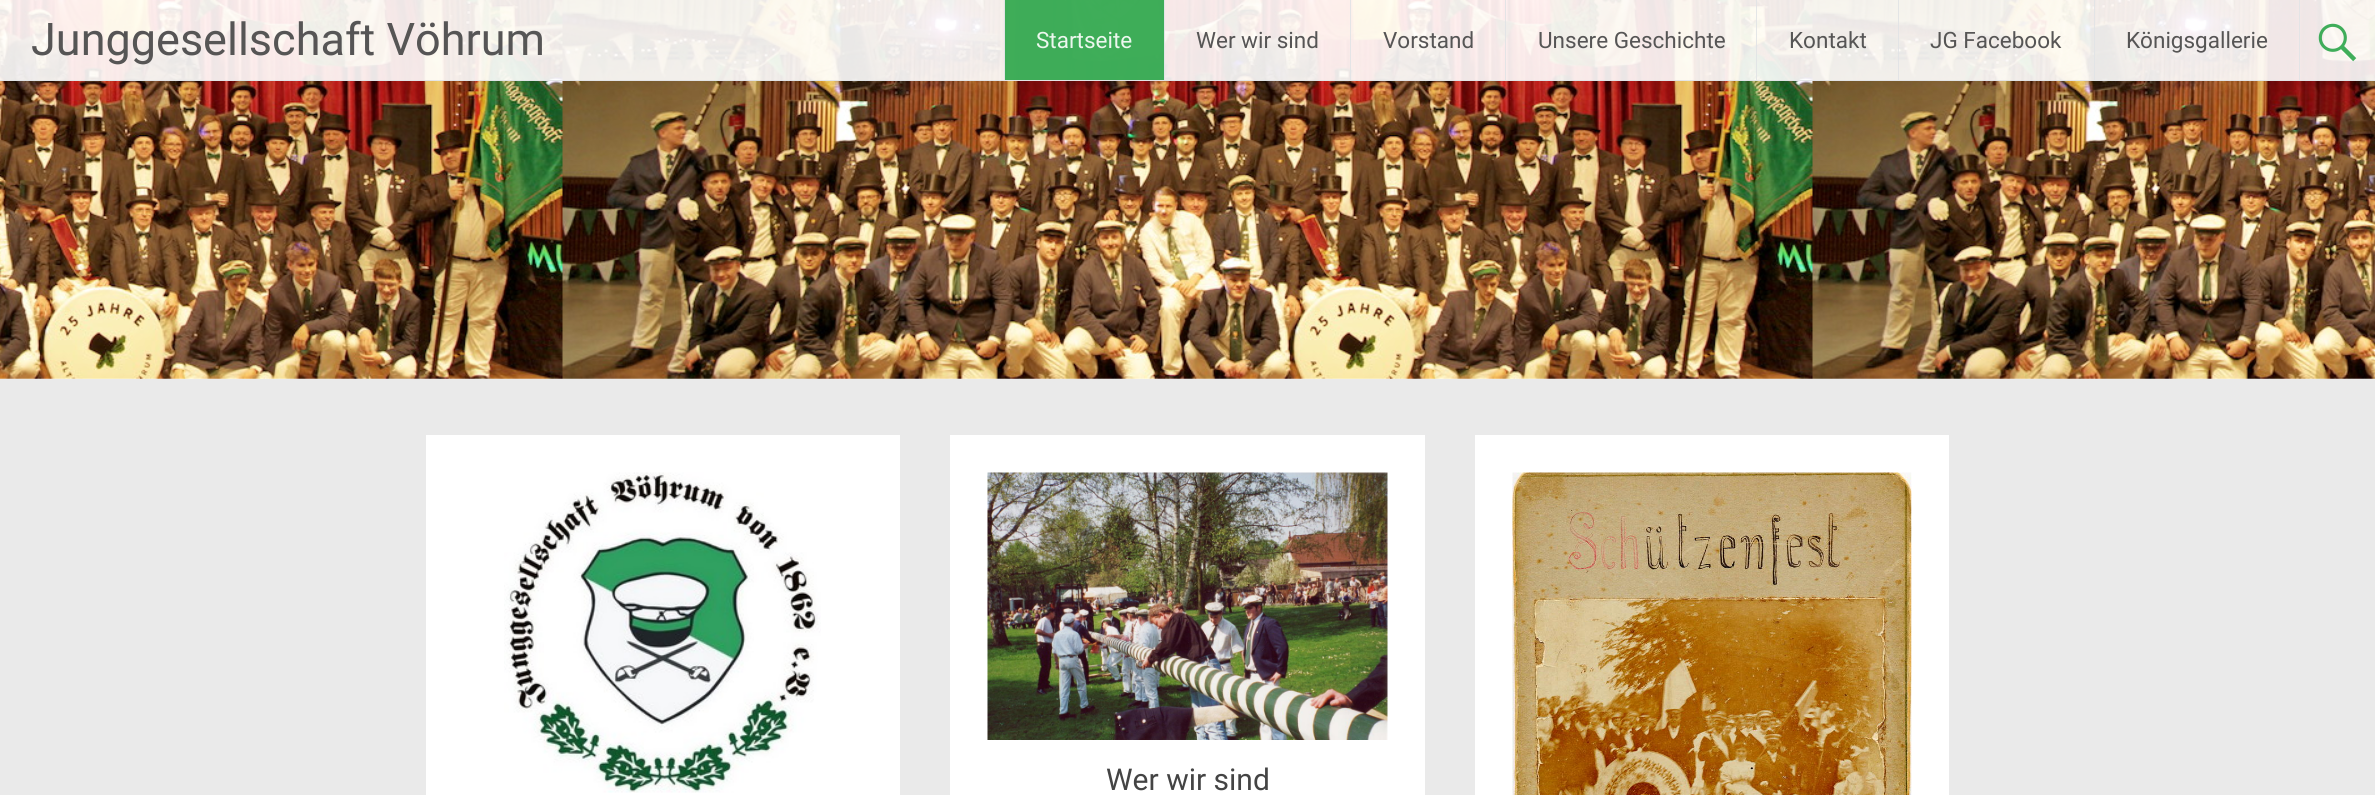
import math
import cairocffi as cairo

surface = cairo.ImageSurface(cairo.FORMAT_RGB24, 2375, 795)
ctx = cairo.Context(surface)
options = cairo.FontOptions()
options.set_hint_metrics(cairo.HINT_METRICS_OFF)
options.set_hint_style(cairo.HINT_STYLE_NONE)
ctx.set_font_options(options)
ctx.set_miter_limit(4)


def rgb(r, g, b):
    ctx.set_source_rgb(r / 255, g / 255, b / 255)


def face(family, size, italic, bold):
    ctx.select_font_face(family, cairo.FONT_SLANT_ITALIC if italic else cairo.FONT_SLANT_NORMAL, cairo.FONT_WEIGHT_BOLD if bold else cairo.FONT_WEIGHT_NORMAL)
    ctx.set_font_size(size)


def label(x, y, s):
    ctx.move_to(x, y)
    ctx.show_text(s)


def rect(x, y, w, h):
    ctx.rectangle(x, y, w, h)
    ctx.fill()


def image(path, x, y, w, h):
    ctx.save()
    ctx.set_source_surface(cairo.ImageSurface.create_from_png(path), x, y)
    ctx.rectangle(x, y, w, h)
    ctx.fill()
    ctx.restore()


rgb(255, 255, 255)
ctx.paint()
image('image0.png', 0, 0, 2375, 379)
ctx.set_source_rgba(1, 1, 1, 0.9)
rect(0, 0, 2375, 81)
ctx.set_source_rgba(0.882, 0.894, 0.902, 0.9)
rect(0, 80, 2375, 1)
face('Roboto', 45, 0, 0)
rgb(86, 85, 85)
label(31, 55, 'Junggesellschaft Vöhrum')
ctx.set_source_rgba(0.882, 0.894, 0.902, 0.9)
rect(1004, 0, 1, 80)
ctx.set_source_rgba(0.169, 0.647, 0.286, 0.9)
rect(1005, 0, 159, 80)
face('Roboto', 22.5, 0, 0)
rgb(236, 247, 238)
label(1036, 48, 'Startseite')
ctx.set_source_rgba(0.882, 0.894, 0.902, 0.9)
rect(1164, 0, 1, 80)
rgb(86, 85, 85)
label(1196, 48, 'Wer wir sind')
ctx.set_source_rgba(0.882, 0.894, 0.902, 0.9)
rect(1350, 0, 1, 80)
rgb(86, 85, 85)
label(1383, 48, 'Vorstand')
ctx.set_source_rgba(0.882, 0.894, 0.902, 0.9)
rect(1505, 0, 1, 80)
rgb(86, 85, 85)
label(1538, 48, 'Unsere Geschichte')
ctx.set_source_rgba(0.882, 0.894, 0.902, 0.9)
rect(1756, 0, 1, 80)
rgb(86, 85, 85)
label(1789, 48, 'Kontakt')
ctx.set_source_rgba(0.882, 0.894, 0.902, 0.9)
rect(1898, 0, 1, 80)
rgb(86, 85, 85)
label(1930, 48, 'JG Facebook')
ctx.set_source_rgba(0.882, 0.894, 0.902, 0.9)
rect(2094, 0, 1, 80)
rgb(86, 85, 85)
label(2126, 48, 'Königsgallerie')
ctx.set_source_rgba(0.882, 0.894, 0.902, 0.9)
rect(2299, 0, 1, 80)
image('image1.png', 2318, 23, 39, 39)
rgb(234, 234, 234)
rect(0, 379, 2375, 416)
rgb(255, 255, 255)
rect(426, 435, 474, 360)
image('image2.png', 504, 472, 317, 321)
rect(950, 435, 475, 360)
image('image3.png', 987, 472, 401, 268)
face('Roboto', 30, 0, 0)
rgb(68, 68, 68)
label(1106, 790, 'Wer wir sind')
rgb(255, 255, 255)
rect(1475, 435, 474, 360)
image('image4.png', 1512, 472, 400, 323)
surface.write_to_png('render.png')
